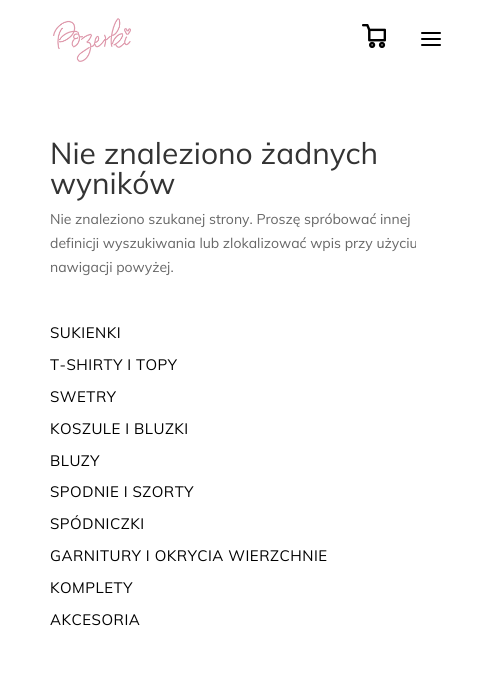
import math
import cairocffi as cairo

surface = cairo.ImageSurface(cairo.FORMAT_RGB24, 497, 674)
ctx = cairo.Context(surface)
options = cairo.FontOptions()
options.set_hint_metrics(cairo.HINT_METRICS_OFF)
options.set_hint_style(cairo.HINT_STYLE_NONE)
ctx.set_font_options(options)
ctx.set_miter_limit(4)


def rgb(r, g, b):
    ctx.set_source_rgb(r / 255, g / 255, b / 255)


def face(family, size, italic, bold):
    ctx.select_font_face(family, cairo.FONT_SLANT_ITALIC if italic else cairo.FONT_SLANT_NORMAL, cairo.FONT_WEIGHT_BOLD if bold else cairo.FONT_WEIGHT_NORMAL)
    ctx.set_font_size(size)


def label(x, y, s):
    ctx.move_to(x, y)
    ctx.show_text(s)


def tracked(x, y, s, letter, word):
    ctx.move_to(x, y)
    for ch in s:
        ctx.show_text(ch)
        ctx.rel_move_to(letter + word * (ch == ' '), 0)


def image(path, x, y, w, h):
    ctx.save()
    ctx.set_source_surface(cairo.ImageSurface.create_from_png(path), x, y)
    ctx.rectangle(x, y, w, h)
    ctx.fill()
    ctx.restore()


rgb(255, 255, 255)
ctx.paint()
image('image0.png', 53, 18, 78, 44)
image('image1.png', 362, 24, 24, 24)
image('image2.png', 421, 32, 20, 14)
face('Muli', 30, 0, 0)
rgb(51, 51, 51)
label(50, 164, 'Nie znaleziono żadnych')
label(50, 194, 'wyników')
face('Muli', 14, 0, 0)
rgb(102, 102, 102)
label(50, 224, 'Nie znaleziono szukanej strony. Proszę spróbować innej')
label(50, 248, 'definicji wyszukiwania lub zlokalizować wpis przy użyciu')
label(50, 272, 'nawigacji powyżej.')
face('Muli', 15, 0, 0)
rgb(0, 0, 0)
tracked(50, 338, 'SUKIENKI', 0.5, 0)
tracked(50, 370, 'T-SHIRTY I TOPY', 0.5, 0)
tracked(50, 402, 'SWETRY', 0.5, 0)
tracked(50, 434, 'KOSZULE I BLUZKI', 0.5, 0)
tracked(50, 466, 'BLUZY', 0.5, 0)
tracked(50, 497, 'SPODNIE I SZORTY', 0.5, 0)
tracked(50, 529, 'SPÓDNICZKI', 0.5, 0)
tracked(50, 561, 'GARNITURY I OKRYCIA WIERZCHNIE', 0.5, 0)
tracked(50, 593, 'KOMPLETY', 0.5, 0)
tracked(50, 625, 'AKCESORIA', 0.5, 0)
surface.write_to_png('render.png')
